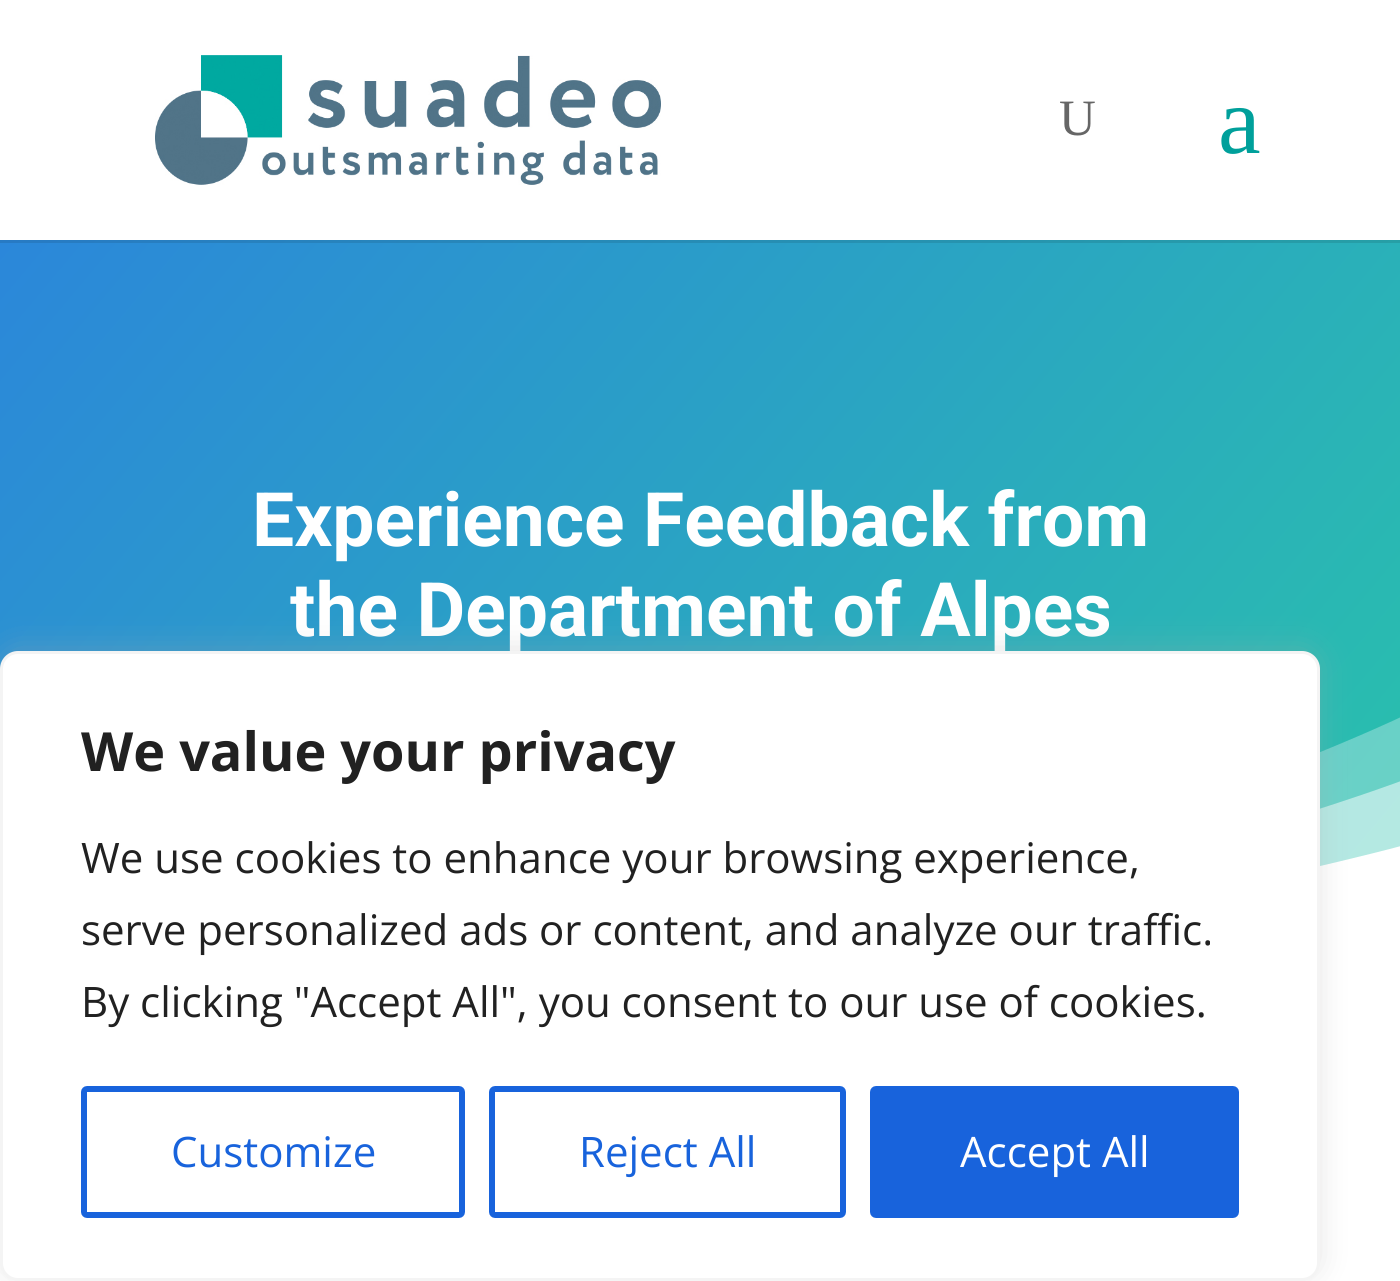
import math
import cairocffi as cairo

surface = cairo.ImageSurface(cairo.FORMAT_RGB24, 1400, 1281)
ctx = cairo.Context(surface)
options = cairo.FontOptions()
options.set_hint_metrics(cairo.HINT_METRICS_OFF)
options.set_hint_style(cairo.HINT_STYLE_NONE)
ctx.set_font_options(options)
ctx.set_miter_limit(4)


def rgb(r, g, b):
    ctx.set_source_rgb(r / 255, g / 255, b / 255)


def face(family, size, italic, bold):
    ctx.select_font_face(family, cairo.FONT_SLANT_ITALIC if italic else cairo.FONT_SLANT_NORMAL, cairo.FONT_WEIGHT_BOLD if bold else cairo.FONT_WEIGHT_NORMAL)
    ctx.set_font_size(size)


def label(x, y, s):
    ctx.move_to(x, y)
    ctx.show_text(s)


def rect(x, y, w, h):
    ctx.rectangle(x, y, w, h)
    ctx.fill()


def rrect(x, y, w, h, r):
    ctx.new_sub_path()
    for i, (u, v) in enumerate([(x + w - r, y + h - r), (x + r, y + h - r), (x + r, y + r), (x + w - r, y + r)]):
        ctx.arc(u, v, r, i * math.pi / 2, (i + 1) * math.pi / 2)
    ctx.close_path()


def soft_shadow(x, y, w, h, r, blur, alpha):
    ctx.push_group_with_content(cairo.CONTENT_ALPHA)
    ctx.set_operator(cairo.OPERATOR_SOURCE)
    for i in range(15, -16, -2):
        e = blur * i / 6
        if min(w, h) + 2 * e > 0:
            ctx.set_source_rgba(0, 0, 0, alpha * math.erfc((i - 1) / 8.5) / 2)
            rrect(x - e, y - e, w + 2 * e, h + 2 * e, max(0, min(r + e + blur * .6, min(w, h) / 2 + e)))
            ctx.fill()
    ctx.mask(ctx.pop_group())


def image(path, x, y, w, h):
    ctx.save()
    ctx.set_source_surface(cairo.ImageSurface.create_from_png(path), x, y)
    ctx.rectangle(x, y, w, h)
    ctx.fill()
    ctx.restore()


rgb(255, 255, 255)
ctx.paint()
image('image0.png', 155, 55, 506, 130)
face('Liberation Serif', 51, 0, 0)
rgb(102, 102, 102)
label(1059, 135, 'U')
face('Liberation Serif', 96, 0, 0)
rgb(0, 160, 155)
label(1218, 153, 'a')
gradient = cairo.LinearGradient(97, 121, 1304, 1133)
gradient.add_color_stop_rgba(0, 0.169, 0.529, 0.855, 1)
gradient.add_color_stop_rgba(1, 0.161, 0.769, 0.663, 1)
ctx.set_source(gradient)
rect(0, 243, 1400, 623)
gradient = cairo.LinearGradient(97, 121, 1304, 1133)
gradient.add_color_stop_rgba(0, 0.153, 0.478, 0.769, 1)
gradient.add_color_stop_rgba(1, 0.145, 0.69, 0.596, 1)
ctx.set_source(gradient)
rect(0, 240, 1400, 3)
face('Roboto', 75, 0, 1)
rgb(255, 255, 255)
label(252, 546, 'Experience Feedback from')
label(290, 636, 'the Department of Alpes')
ctx.set_source_rgba(1, 1, 1, 0.3)
ctx.new_path()
ctx.move_to(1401, 1017)
ctx.line_to(0, 1017)
ctx.curve_to(774, 1017, 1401, 717, 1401, 717)
ctx.close_path()
ctx.fill()
ctx.set_source_rgba(1, 1, 1, 0.5)
ctx.new_path()
ctx.move_to(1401, 1017)
ctx.line_to(0, 1017)
ctx.curve_to(774, 1017, 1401, 781, 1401, 781)
ctx.close_path()
ctx.fill()
rgb(255, 255, 255)
ctx.new_path()
ctx.move_to(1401, 1017)
ctx.line_to(0, 1017)
ctx.curve_to(774, 1017, 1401, 846, 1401, 846)
ctx.close_path()
ctx.fill()
rgb(172, 171, 171)
soft_shadow(0, 648, 1320, 630, 18, 15, 0.3)
rgb(255, 255, 255)
rrect(1.5, 652.5, 1317, 627, 16.5)
ctx.fill_preserve()
rgb(244, 244, 244)
ctx.set_line_width(3)
ctx.stroke()
face('Open Sans', 54, 0, 1)
rgb(33, 33, 33)
label(81, 771, 'We value your privacy')
face('Open Sans', 42, 0, 0)
label(81, 873, 'We use cookies to enhance your browsing experience,')
label(81, 945, 'serve personalized ads or content, and analyze our traffic.')
label(81, 1017, 'By clicking "Accept All", you consent to our use of cookies.')
rrect(84, 1089, 378, 126, 3)
rgb(24, 99, 220)
ctx.set_line_width(6)
ctx.stroke()
label(171, 1167, 'Customize')
rrect(492, 1089, 351, 126, 3)
ctx.stroke()
label(579, 1167, 'Reject All')
rrect(873, 1089, 363, 126, 3)
ctx.fill_preserve()
ctx.stroke()
rgb(255, 255, 255)
label(960, 1167, 'Accept All')
surface.write_to_png('render.png')
